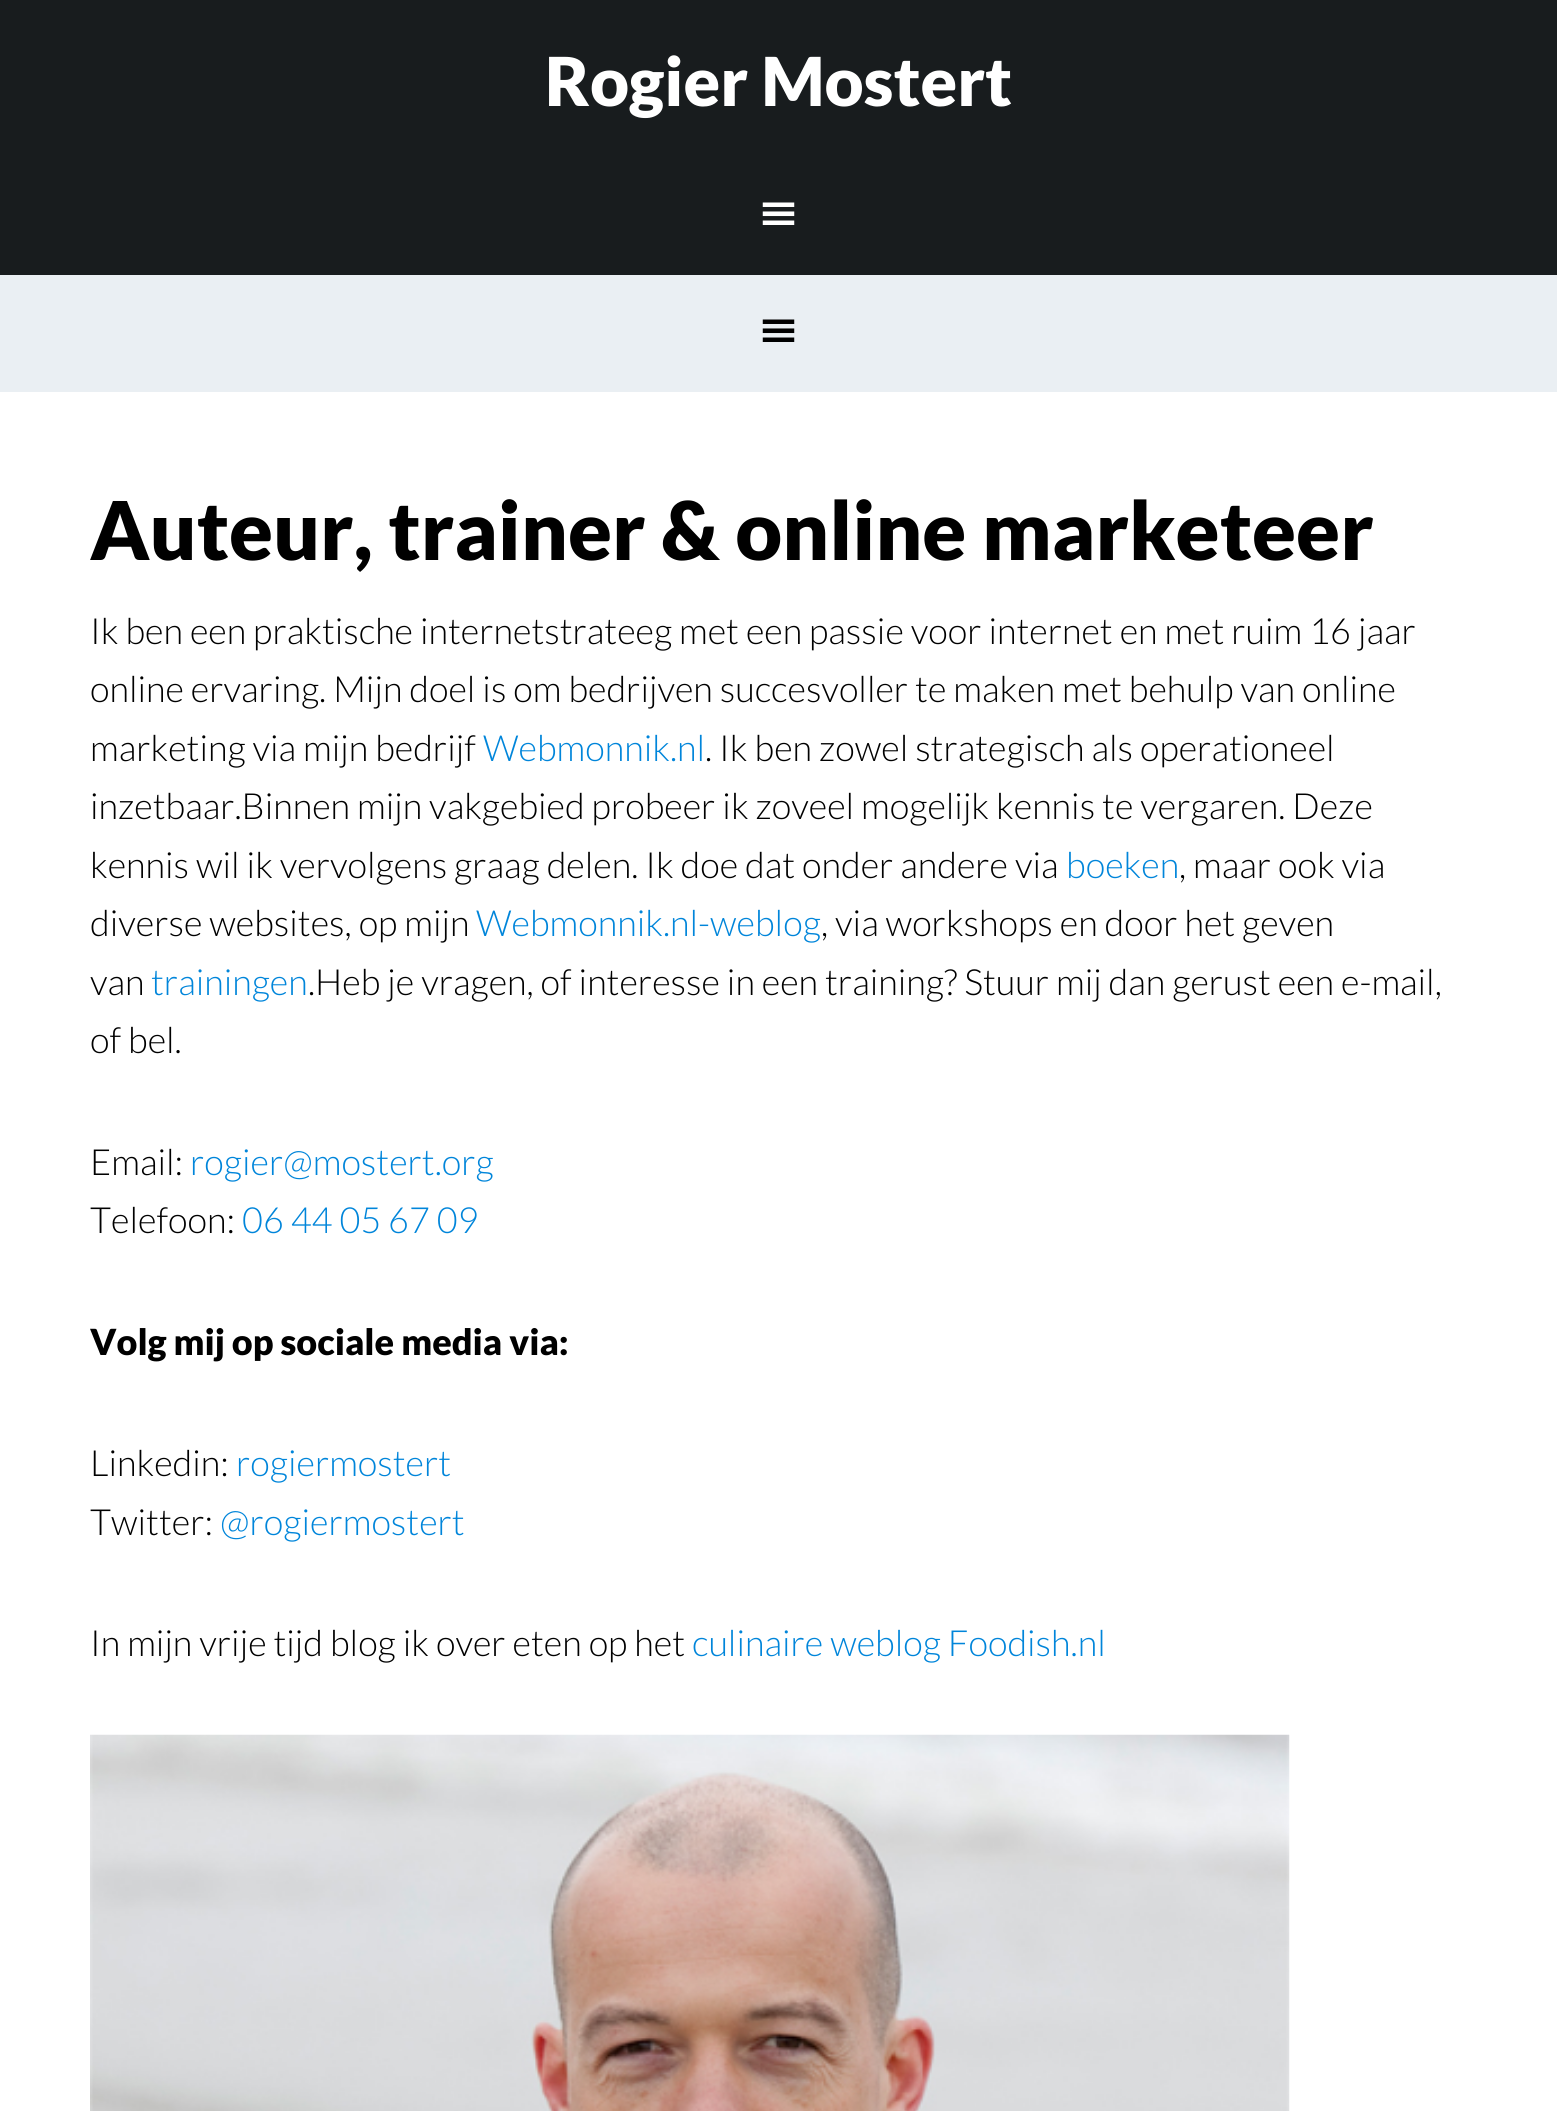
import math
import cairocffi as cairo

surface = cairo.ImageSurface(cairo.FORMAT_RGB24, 1557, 2111)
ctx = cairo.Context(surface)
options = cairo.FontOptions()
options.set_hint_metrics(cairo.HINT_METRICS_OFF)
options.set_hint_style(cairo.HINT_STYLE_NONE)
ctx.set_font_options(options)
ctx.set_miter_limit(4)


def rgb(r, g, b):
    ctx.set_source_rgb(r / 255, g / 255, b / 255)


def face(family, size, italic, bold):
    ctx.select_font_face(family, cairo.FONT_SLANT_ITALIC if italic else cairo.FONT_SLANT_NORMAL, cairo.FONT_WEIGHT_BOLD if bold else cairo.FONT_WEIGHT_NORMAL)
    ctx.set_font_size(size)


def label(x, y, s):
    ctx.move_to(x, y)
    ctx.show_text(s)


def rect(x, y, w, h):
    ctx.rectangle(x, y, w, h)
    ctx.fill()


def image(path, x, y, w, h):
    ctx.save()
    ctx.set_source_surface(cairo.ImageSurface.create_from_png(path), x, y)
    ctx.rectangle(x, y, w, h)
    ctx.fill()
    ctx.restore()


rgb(255, 255, 255)
ctx.paint()
rgb(24, 28, 30)
rect(0, 0, 1557, 275)
face('Lato Black', 67.5, 0, 0)
rgb(255, 255, 255)
label(545, 106, 'Rogier Mostert')
image('image0.png', 762, 202, 33, 23)
rgb(234, 239, 243)
rect(0, 275, 1557, 117)
image('image1.png', 762, 319, 33, 23)
face('Lato Black', 81, 0, 0)
rgb(0, 0, 0)
label(90, 560, 'Auteur, trainer & online marketeer')
face('Lato Light', 36, 0, 0)
label(90, 644, 'Ik ben een praktische internetstrateeg met een passie voor internet en met ruim 16 jaar')
label(90, 702, 'online ervaring. Mijn doel is om bedrijven succesvoller te maken met behulp van online')
label(90, 761, 'marketing via mijn bedrijf')
rgb(0, 133, 218)
label(483, 761, 'Webmonnik.nl')
rgb(0, 0, 0)
label(705, 761, '. Ik ben zowel strategisch als operationeel')
label(90, 819, 'inzetbaar.Binnen mijn vakgebied probeer ik zoveel mogelijk kennis te vergaren. Deze')
label(90, 878, 'kennis wil ik vervolgens graag delen. Ik doe dat onder andere via')
rgb(0, 133, 218)
label(1066, 878, 'boeken')
rgb(0, 0, 0)
label(1179, 878, ', maar ook via')
label(90, 936, 'diverse websites, op mijn')
rgb(0, 133, 218)
label(476, 936, 'Webmonnik.nl-weblog')
rgb(0, 0, 0)
label(821, 936, ', via workshops en door het geven')
label(90, 995, 'van')
rgb(0, 133, 218)
label(151, 995, 'trainingen')
rgb(0, 0, 0)
label(308, 995, '.Heb je vragen, of interesse in een training? Stuur mij dan gerust een e-mail,')
label(90, 1053, 'of bel.')
label(90, 1175, 'Email:')
rgb(0, 133, 218)
label(190, 1175, 'rogier@mostert.org')
rgb(0, 0, 0)
label(90, 1233, 'Telefoon:')
rgb(0, 133, 218)
label(242, 1233, '06 44 05 67 09')
face('Lato Black', 36, 0, 0)
rgb(0, 0, 0)
label(90, 1355, 'Volg mij op sociale media via:')
face('Lato Light', 36, 0, 0)
label(90, 1476, 'Linkedin:')
rgb(0, 133, 218)
label(236, 1476, 'rogiermostert')
rgb(0, 0, 0)
label(90, 1535, 'Twitter:')
rgb(0, 133, 218)
label(220, 1535, '@rogiermostert')
rgb(0, 0, 0)
label(90, 1656, 'In mijn vrije tijd blog ik over eten op het')
rgb(0, 133, 218)
label(692, 1656, 'culinaire weblog Foodish.nl')
image('image2.png', 90, 1734, 1200, 377)
surface.write_to_png('render.png')
